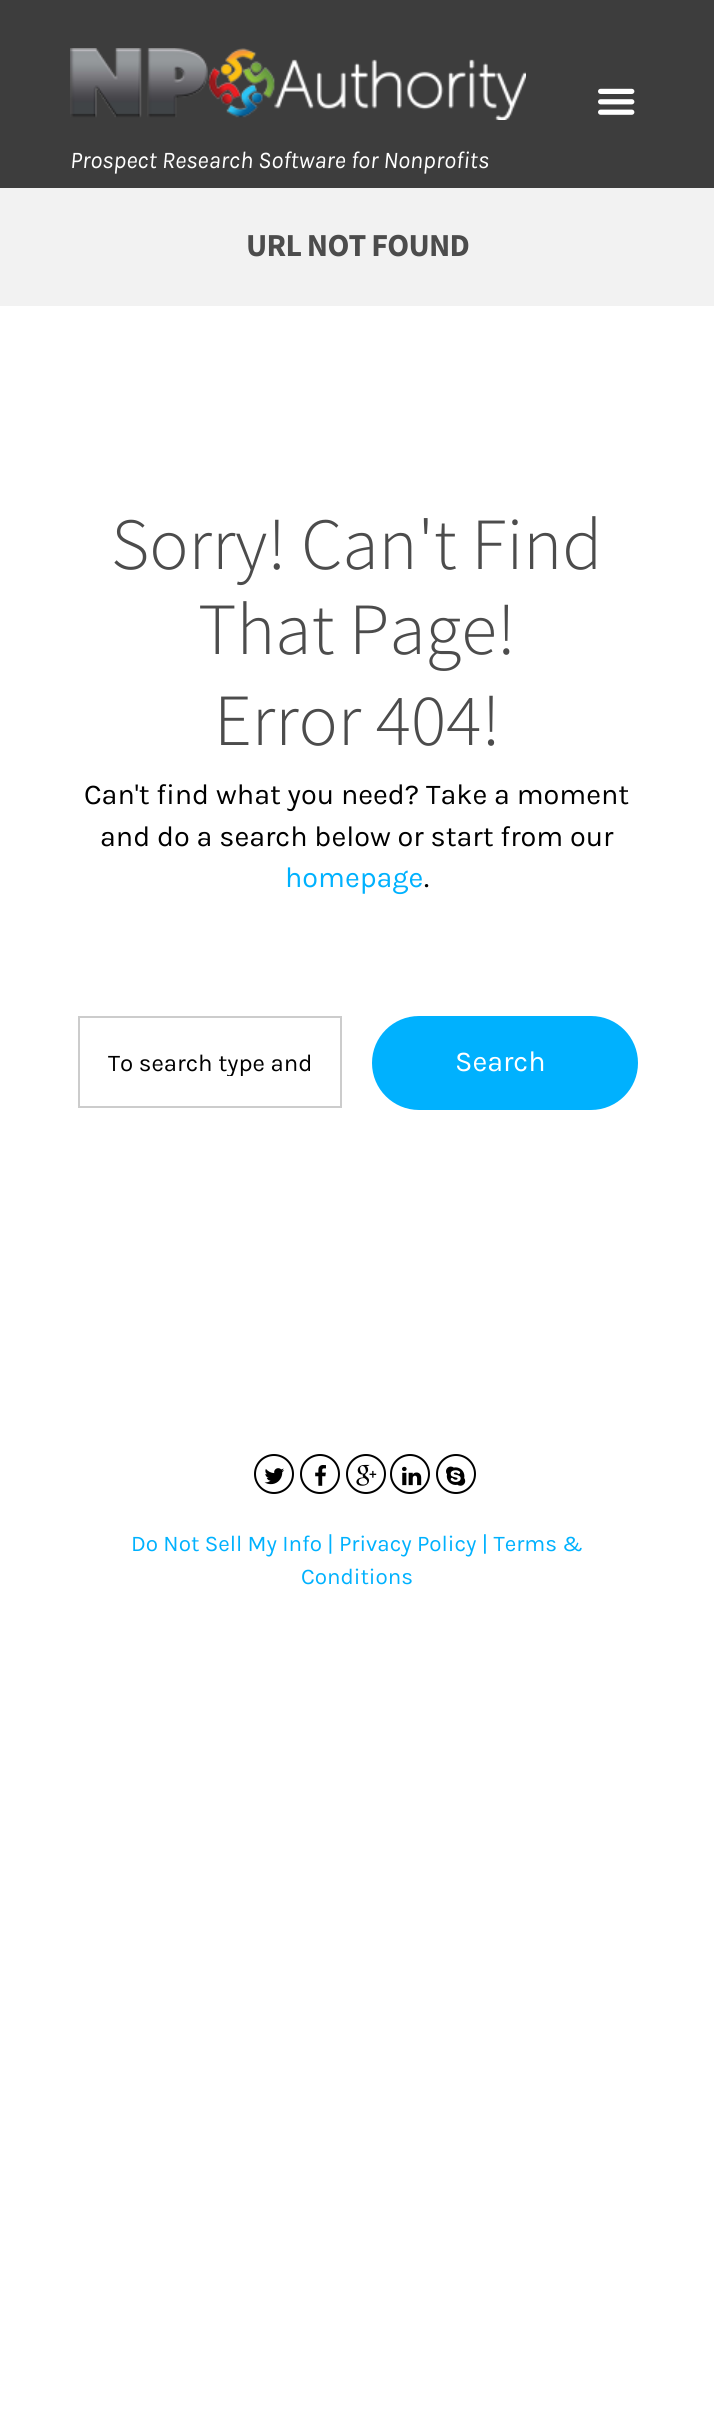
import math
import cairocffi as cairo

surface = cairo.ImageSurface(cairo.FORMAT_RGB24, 714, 2413)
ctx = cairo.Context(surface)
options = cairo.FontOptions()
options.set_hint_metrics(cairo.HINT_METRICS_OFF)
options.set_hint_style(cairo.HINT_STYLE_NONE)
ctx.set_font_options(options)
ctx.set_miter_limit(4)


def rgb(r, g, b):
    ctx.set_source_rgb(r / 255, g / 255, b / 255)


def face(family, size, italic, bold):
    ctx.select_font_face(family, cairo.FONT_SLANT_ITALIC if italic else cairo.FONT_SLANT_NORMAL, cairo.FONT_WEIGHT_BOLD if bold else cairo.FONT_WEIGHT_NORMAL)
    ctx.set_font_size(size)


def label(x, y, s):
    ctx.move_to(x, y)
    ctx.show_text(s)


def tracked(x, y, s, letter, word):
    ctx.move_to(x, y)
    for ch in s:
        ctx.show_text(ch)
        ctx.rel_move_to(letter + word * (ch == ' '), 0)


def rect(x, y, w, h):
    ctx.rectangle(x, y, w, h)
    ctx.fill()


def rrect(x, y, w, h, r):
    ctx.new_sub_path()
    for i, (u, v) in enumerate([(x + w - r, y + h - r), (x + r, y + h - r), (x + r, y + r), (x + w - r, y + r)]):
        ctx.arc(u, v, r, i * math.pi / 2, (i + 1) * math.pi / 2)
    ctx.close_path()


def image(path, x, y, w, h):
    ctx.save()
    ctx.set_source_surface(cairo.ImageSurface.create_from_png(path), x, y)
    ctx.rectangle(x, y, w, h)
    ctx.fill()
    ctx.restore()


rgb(255, 255, 255)
ctx.paint()
rgb(61, 61, 61)
rect(0, 0, 714, 188)
image('image0.png', 598, 88, 37, 27)
image('image1.png', 70, 48, 456, 72)
face('Karla', 24, 1, 0)
rgb(255, 255, 255)
label(70, 168, 'Prospect Research Software for Nonprofits')
rgb(242, 242, 242)
rect(0, 188, 714, 118)
face('Source Sans Pro', 32, 0, 1)
rgb(76, 76, 76)
tracked(246, 256, 'URL NOT FOUND', -0.75, 0)
face('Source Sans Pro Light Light', 73.5, 0, 0)
label(111, 569, 'Sorry! Can\'t Find')
label(198, 654, 'That Page!')
label(214, 745, 'Error 404!')
face('Karla', 28.75, 0, 0)
rgb(0, 0, 0)
label(84, 804, 'Can\'t find what you need? Take a moment')
label(100, 846, 'and do a search below or start from our')
rgb(0, 177, 254)
label(285, 887, 'homepage')
rgb(0, 0, 0)
label(424, 887, '.')
ctx.rectangle(79, 1017, 262, 90)
rgb(204, 204, 204)
ctx.stroke()
ctx.save()
ctx.rectangle(108, 1048, 202, 28)
ctx.clip()
face('Karla', 24, 0, 0)
rgb(0, 0, 0)
label(108, 1071, 'To search type and')
ctx.restore()
rgb(0, 177, 254)
rrect(374, 1018, 262, 90, 45)
ctx.fill_preserve()
ctx.set_line_width(4)
ctx.stroke()
rgb(255, 255, 255)
label(455, 1071, 'Search')
ctx.new_path()
ctx.arc(274, 1474, 19, 0, 2 * math.pi)
rgb(0, 0, 0)
ctx.set_line_width(2)
ctx.stroke()
image('image2.png', 264, 1468, 21, 17)
ctx.arc(320, 1474, 19, 0, 2 * math.pi)
ctx.stroke()
image('image3.png', 315, 1465, 11, 21)
ctx.arc(366, 1474, 19, 0, 2 * math.pi)
ctx.stroke()
image('image4.png', 356, 1464, 21, 22)
ctx.arc(410, 1474, 19, 0, 2 * math.pi)
ctx.stroke()
image('image5.png', 402, 1466, 20, 20)
ctx.arc(456, 1474, 19, 0, 2 * math.pi)
ctx.stroke()
image('image6.png', 446, 1466, 20, 20)
face('Karla', 22.4, 0, 0)
rgb(0, 177, 254)
label(131, 1551, 'Do Not Sell My Info | Privacy Policy | Terms &')
label(301, 1584, 'Conditions')
surface.write_to_png('render.png')
